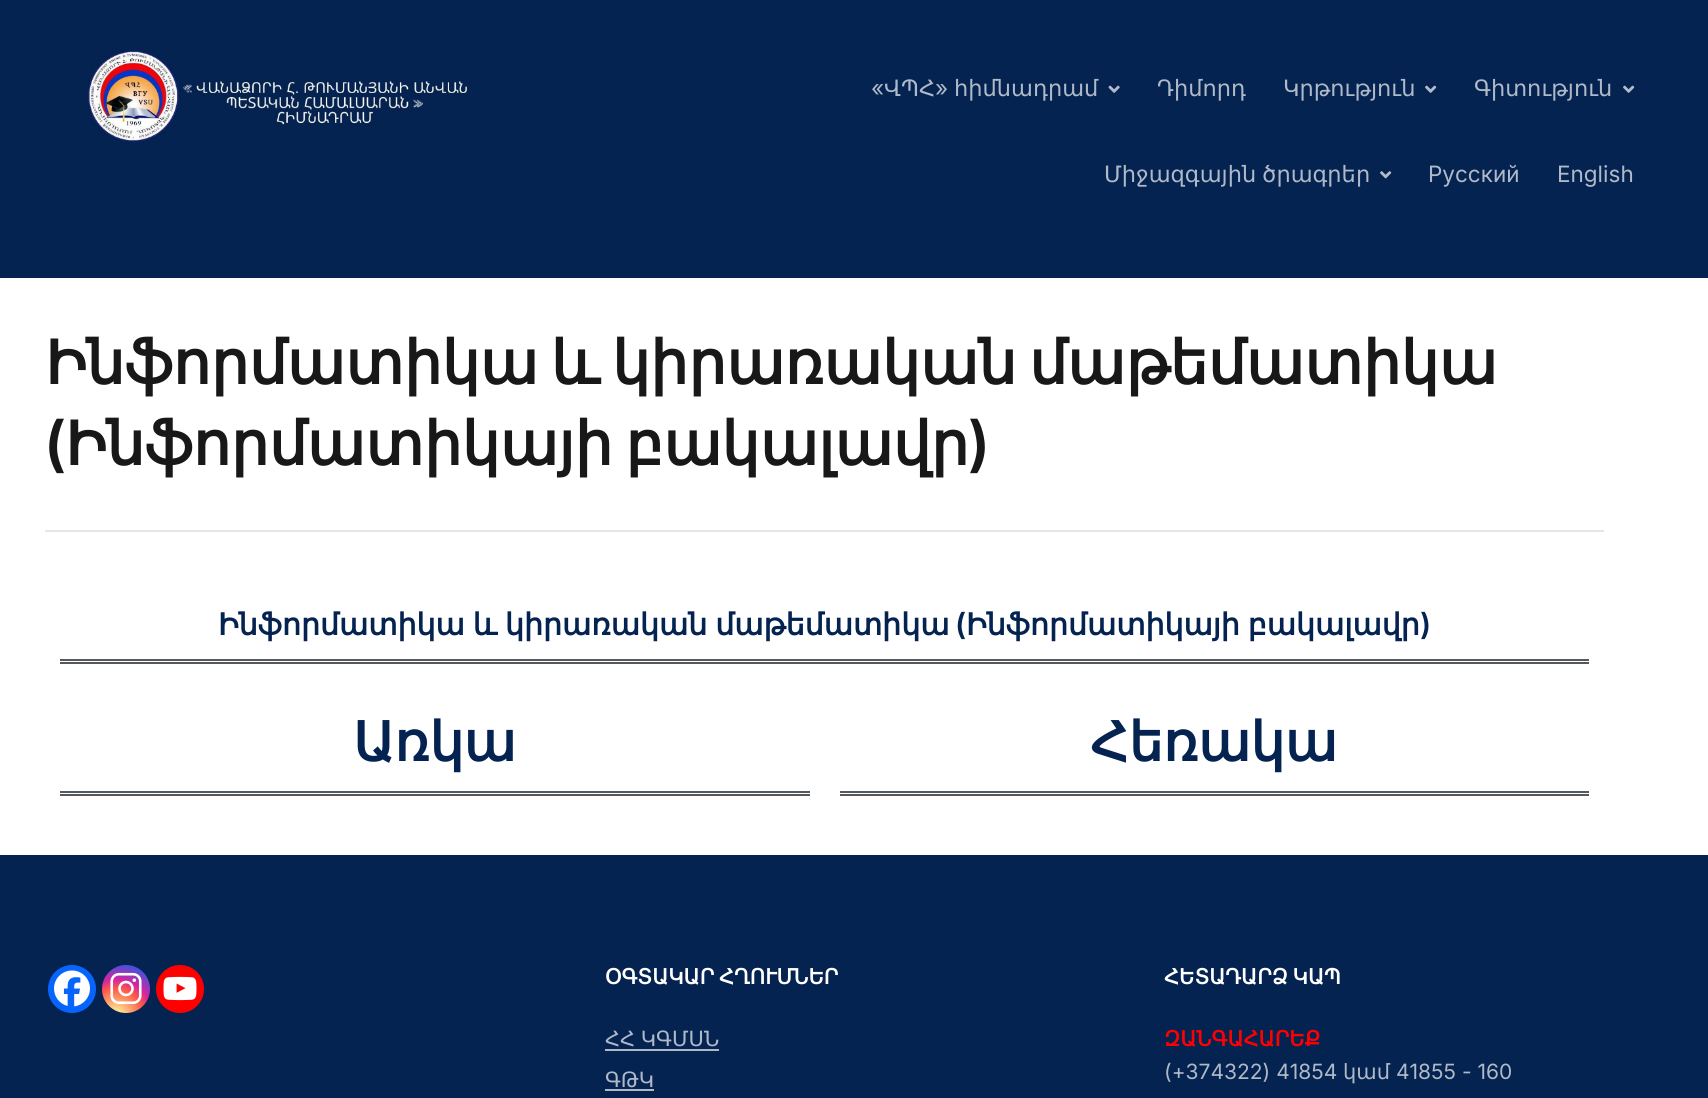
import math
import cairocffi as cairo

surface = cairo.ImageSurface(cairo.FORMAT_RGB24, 1708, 1098)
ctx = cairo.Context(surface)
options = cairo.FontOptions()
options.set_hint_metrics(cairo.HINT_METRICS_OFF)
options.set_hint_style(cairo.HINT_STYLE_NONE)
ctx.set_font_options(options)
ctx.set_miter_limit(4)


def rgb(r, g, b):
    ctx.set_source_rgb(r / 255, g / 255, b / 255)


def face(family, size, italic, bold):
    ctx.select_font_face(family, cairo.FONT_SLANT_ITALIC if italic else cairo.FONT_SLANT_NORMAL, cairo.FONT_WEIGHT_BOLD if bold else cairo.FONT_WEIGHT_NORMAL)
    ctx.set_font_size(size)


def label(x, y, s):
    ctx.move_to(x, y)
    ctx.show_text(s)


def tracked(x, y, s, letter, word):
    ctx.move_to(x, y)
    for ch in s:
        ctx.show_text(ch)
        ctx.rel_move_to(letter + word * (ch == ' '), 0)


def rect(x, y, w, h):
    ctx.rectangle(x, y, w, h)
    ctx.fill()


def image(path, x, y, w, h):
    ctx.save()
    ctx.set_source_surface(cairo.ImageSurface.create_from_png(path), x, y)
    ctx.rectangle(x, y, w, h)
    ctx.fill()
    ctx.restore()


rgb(4, 35, 81)
ctx.paint()
image('image0.png', 86, 50, 384, 94)
face('Inter', 22.5, 0, 0)
rgb(175, 185, 199)
label(871, 96, '«')
face('DejaVu Sans', 22.5, 0, 0)
label(884, 96, 'ՎՊՀ')
face('Inter', 22.5, 0, 0)
label(935, 96, '»')
face('DejaVu Sans', 22.5, 0, 0)
label(954, 96, 'հիմնադրամ')
image('image1.png', 1108, 85, 12, 8)
label(1157, 96, 'Դիմորդ')
label(1283, 96, 'Կրթություն')
image('image2.png', 1425, 85, 12, 8)
label(1474, 96, 'Գիտություն')
image('image2.png', 1623, 85, 12, 8)
tracked(1104, 182, 'Միջազգային ծրագրեր', 0, -1)
image('image3.png', 1380, 171, 12, 8)
face('Inter', 22.5, 0, 0)
label(1428, 182, 'Русский')
label(1557, 182, 'English')
rgb(255, 255, 255)
rect(0, 278, 1708, 577)
rgb(230, 230, 230)
rect(45, 530, 1559, 2)
face('DejaVu Sans', 60, 0, 1)
rgb(24, 24, 24)
tracked(45, 384, 'Ինֆորմատիկա և կիրառական մաթեմատիկա', 0, -6.5)
face('Inter Tight SemiBold', 60, 0, 0)
label(45, 465, '(')
face('DejaVu Sans', 60, 0, 1)
tracked(65, 465, 'Ինֆորմատիկայի բակալավր', 0, -6.5)
face('Inter Tight SemiBold', 60, 0, 0)
label(969, 465, ')')
rgb(84, 89, 95)
rect(60, 659, 1529, 2)
rect(60, 662, 1529, 2)
face('DejaVu Sans', 30, 0, 1)
rgb(4, 35, 81)
tracked(218, 635, 'Ինֆորմատիկա և կիրառական մաթեմատիկա', 0, -1.5)
face('Inter SemiBold', 30, 0, 0)
label(955, 635, '(')
face('DejaVu Sans', 30, 0, 1)
tracked(966, 635, 'Ինֆորմատիկայի բակալավր', 0, -1.5)
face('Inter SemiBold', 30, 0, 0)
label(1420, 635, ')')
rgb(84, 89, 95)
rect(60, 791, 750, 2)
rect(60, 794, 750, 2)
face('DejaVu Sans', 54, 0, 1)
rgb(4, 35, 81)
label(353, 761, 'Առկա')
rgb(84, 89, 95)
rect(840, 791, 749, 2)
rect(840, 794, 749, 2)
rgb(4, 35, 81)
label(1090, 761, 'Հեռակա')
rgb(7, 101, 254)
ctx.new_path()
ctx.arc(72, 989, 24, 0, 2 * math.pi)
ctx.fill()
image('image4.png', 54, 970, 36, 37)
gradient = cairo.RadialGradient(116, 1016, 0, 116, 1016, 61)
gradient.add_color_stop_rgba(0, 0.992, 0.957, 0.592, 1)
gradient.add_color_stop_rgba(0.05, 0.992, 0.957, 0.592, 1)
gradient.add_color_stop_rgba(0.45, 0.992, 0.349, 0.286, 1)
gradient.add_color_stop_rgba(0.6, 0.839, 0.141, 0.624, 1)
gradient.add_color_stop_rgba(0.9, 0.157, 0.353, 0.922, 1)
ctx.set_source(gradient)
ctx.arc(126, 989, 24, 0, 2 * math.pi)
ctx.fill()
image('image5.png', 110, 972, 32, 33)
rgb(255, 0, 0)
ctx.arc(180, 989, 24, 0, 2 * math.pi)
ctx.fill()
image('image6.png', 163, 976, 34, 25)
face('DejaVu Sans', 21, 0, 1)
rgb(255, 255, 255)
tracked(605, 984, 'ՕԳՏԱԿԱՐ ՀՂՈՒՄՆԵՐ', 0, -2)
face('DejaVu Sans', 21, 0, 0)
rgb(175, 185, 199)
tracked(605, 1046, 'ՀՀ ԿԳՄՍՆ', 0, -1)
rect(605, 1049, 114, 2)
label(605, 1087, 'ԳԹԿ')
rect(605, 1089, 49, 2)
face('DejaVu Sans', 21, 0, 1)
rgb(255, 255, 255)
tracked(1164, 984, 'ՀԵՏԱԴԱՐՁ ԿԱՊ', 0, -2)
rgb(255, 0, 0)
label(1164, 1046, 'ԶԱՆԳԱՀԱՐԵՔ')
face('Inter', 21, 0, 0)
rgb(175, 185, 199)
label(1164, 1079, '(+374322) 41854')
face('DejaVu Sans', 21, 0, 0)
label(1343, 1079, 'կամ')
face('Inter', 21, 0, 0)
label(1396, 1079, '41855 - 160')
surface.write_to_png('render.png')
